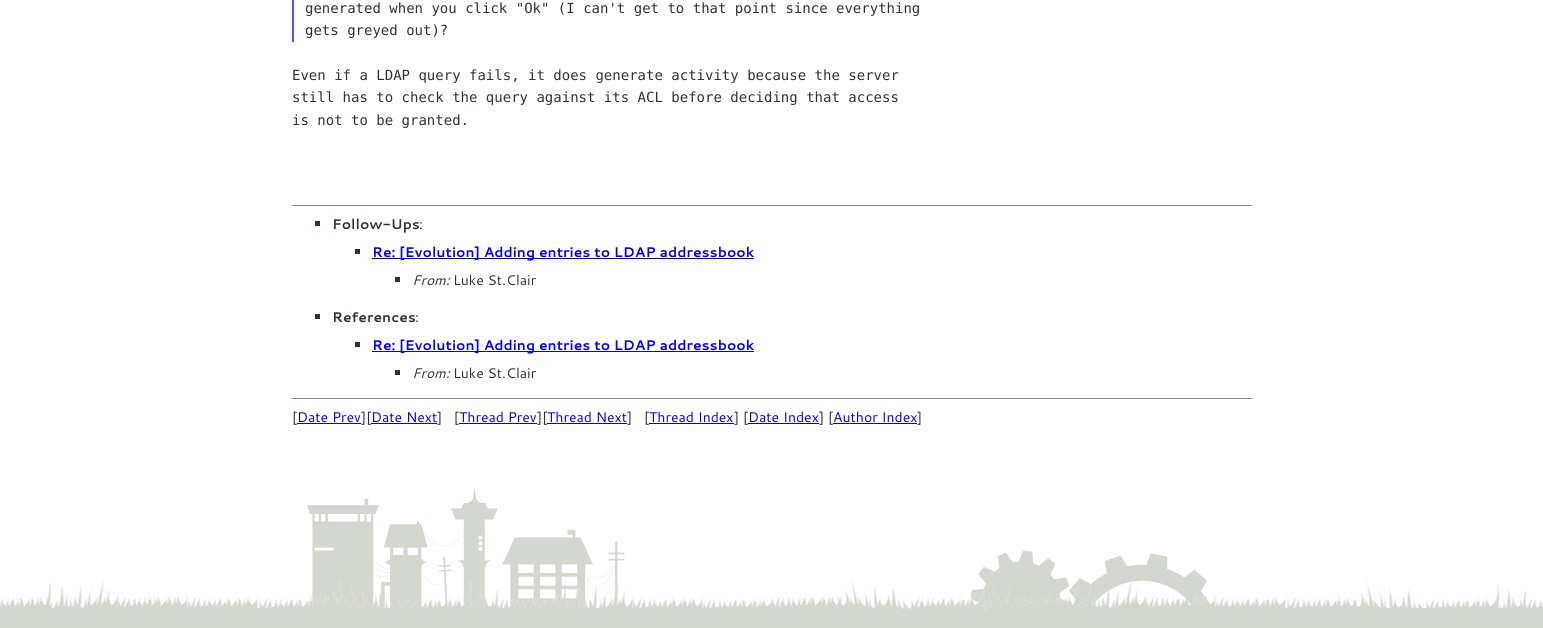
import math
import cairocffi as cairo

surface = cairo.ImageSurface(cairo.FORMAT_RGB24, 1543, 628)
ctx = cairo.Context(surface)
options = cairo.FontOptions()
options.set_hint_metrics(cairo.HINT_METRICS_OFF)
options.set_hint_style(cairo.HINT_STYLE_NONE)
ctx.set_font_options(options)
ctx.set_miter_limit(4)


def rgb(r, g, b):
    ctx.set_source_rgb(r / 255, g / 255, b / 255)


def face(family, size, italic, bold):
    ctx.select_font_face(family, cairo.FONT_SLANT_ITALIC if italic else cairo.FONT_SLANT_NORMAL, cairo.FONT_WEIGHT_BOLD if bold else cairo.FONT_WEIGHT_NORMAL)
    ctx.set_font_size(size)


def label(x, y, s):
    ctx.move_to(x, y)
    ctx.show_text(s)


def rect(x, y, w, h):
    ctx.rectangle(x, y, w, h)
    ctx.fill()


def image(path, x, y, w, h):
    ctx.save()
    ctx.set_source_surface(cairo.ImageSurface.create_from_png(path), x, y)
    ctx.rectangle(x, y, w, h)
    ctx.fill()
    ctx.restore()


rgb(255, 255, 255)
ctx.paint()
rgb(85, 85, 238)
rect(292, 0, 2, 42)
face('DejaVu Sans Mono', 14, 0, 0)
rgb(46, 52, 54)
label(305, 13, 'generated when you click "Ok" (I can\'t get to that point since everything')
label(305, 35, 'gets greyed out)?')
label(292, 80, 'Even if a LDAP query fails, it does generate activity because the server')
label(292, 102, 'still has to check the query against its ACL before deciding that access')
label(292, 125, 'is not to be granted.')
rgb(136, 136, 136)
rect(292, 205, 960, 1)
rgb(46, 52, 54)
rect(315, 221, 5, 5)
face('Cantarell', 14, 0, 1)
label(332, 229, 'Follow-Ups')
face('Cantarell', 14, 0, 0)
label(419, 229, ':')
rect(355, 249, 5, 5)
rgb(0, 0, 255)
rect(372, 258, 382, 1)
face('Cantarell', 14, 0, 1)
label(372, 257, 'Re: [Evolution] Adding entries to LDAP addressbook')
rgb(46, 52, 54)
rect(395, 277, 5, 5)
face('Cantarell', 14, 1, 0)
label(412, 285, 'From:')
face('Cantarell', 14, 0, 0)
label(453, 285, 'Luke St.Clair')
rect(315, 314, 5, 5)
face('Cantarell', 14, 0, 1)
label(332, 322, 'References')
face('Cantarell', 14, 0, 0)
label(415, 322, ':')
rect(355, 342, 5, 5)
rgb(0, 0, 255)
rect(372, 351, 382, 1)
face('Cantarell', 14, 0, 1)
label(372, 350, 'Re: [Evolution] Adding entries to LDAP addressbook')
rgb(46, 52, 54)
rect(395, 370, 5, 5)
face('Cantarell', 14, 1, 0)
label(412, 378, 'From:')
face('Cantarell', 14, 0, 0)
label(453, 378, 'Luke St.Clair')
rgb(136, 136, 136)
rect(292, 398, 960, 1)
rgb(46, 52, 54)
label(292, 422, '[')
rgb(0, 0, 255)
label(297, 422, 'Date Prev')
rect(297, 423, 64, 1)
rgb(46, 52, 54)
label(361, 422, '][')
rgb(0, 0, 255)
label(371, 422, 'Date Next')
rect(371, 423, 66, 1)
rgb(46, 52, 54)
label(437, 422, ']   [')
rgb(0, 0, 255)
label(459, 422, 'Thread Prev')
rect(459, 423, 78, 1)
rgb(46, 52, 54)
label(537, 422, '][')
rgb(0, 0, 255)
label(547, 422, 'Thread Next')
rect(547, 423, 80, 1)
rgb(46, 52, 54)
label(627, 422, ']')
label(644, 422, '[')
rgb(0, 0, 255)
label(649, 422, 'Thread Index')
rect(649, 423, 85, 1)
rgb(46, 52, 54)
label(734, 422, '] [')
rgb(0, 0, 255)
label(748, 422, 'Date Index')
rect(748, 423, 71, 1)
rgb(46, 52, 54)
label(819, 422, '] [')
rgb(0, 0, 255)
label(833, 422, 'Author Index')
rect(833, 423, 84, 1)
rgb(46, 52, 54)
label(917, 422, ']')
image('image0.png', 307, 487, 918, 121)
image('image1.png', 0, 577, 1543, 37)
rgb(211, 215, 207)
rect(0, 614, 1543, 14)
surface.write_to_png('render.png')
